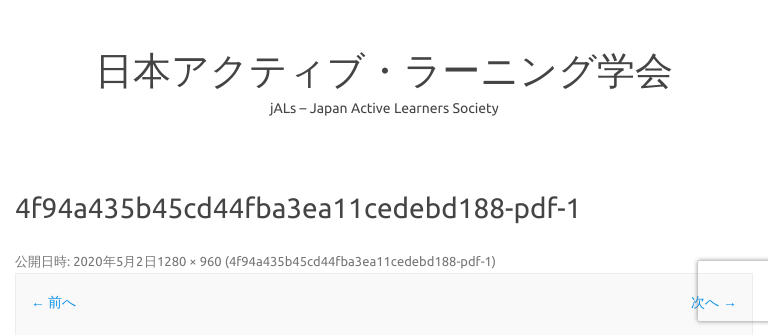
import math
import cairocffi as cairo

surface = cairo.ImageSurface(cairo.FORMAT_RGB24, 768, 335)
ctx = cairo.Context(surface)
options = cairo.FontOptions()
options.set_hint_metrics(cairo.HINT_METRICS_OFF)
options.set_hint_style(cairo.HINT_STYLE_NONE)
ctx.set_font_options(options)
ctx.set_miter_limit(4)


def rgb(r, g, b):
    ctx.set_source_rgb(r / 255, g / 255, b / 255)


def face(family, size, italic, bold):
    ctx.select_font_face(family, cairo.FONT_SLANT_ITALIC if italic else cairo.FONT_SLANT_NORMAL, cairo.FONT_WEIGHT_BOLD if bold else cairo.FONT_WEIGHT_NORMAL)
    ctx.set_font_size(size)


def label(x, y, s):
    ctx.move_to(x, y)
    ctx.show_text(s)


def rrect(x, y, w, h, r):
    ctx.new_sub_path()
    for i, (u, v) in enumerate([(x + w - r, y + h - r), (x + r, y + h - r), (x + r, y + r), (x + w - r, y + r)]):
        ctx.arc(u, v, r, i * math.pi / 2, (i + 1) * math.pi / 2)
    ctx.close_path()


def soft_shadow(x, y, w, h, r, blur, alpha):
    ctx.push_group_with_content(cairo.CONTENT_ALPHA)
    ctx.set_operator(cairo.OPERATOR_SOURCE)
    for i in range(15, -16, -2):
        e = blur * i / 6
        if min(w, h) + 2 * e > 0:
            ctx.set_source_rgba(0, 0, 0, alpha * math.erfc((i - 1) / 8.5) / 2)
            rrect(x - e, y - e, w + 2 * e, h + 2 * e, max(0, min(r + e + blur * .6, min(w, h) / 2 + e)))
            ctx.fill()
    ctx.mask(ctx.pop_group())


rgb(255, 255, 255)
ctx.paint()
face('WenQuanYi Zen Hei Medium', 38, 0, 0)
rgb(68, 68, 68)
label(95, 84, '日本アクティブ・ラーニング学会')
face('Ubuntu', 14, 0, 0)
label(270, 113, 'jALs – Japan Active Learners Society')
face('Ubuntu', 28, 0, 0)
label(15, 218, '4f94a435b45cd44fba3ea11cedebd188-pdf-1')
face('WenQuanYi Zen Hei Medium', 13, 0, 0)
rgb(117, 117, 117)
label(15, 266, '公開日時')
face('Ubuntu', 13, 0, 0)
label(67, 266, ': 2020')
face('WenQuanYi Zen Hei Medium', 13, 0, 0)
label(103, 266, '年')
face('Ubuntu', 13, 0, 0)
label(116, 266, '5')
face('WenQuanYi Zen Hei Medium', 13, 0, 0)
label(123, 266, '月')
face('Ubuntu', 13, 0, 0)
label(136, 266, '2')
face('WenQuanYi Zen Hei Medium', 13, 0, 0)
label(144, 266, '日')
face('Ubuntu', 13, 0, 0)
label(157, 266, '1280 × 960 (4f94a435b45cd44fba3ea11cedebd188-pdf-1)')
rgb(249, 249, 249)
ctx.rectangle(15.5, 273.5, 737, 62)
ctx.fill_preserve()
rgb(237, 237, 237)
ctx.set_line_width(1)
ctx.stroke()
face('Liberation Sans', 14, 0, 0)
rgb(11, 145, 234)
label(31, 307, '←')
face('WenQuanYi Zen Hei Medium', 14, 0, 0)
label(48, 307, '前へ')
label(691, 307, '次へ')
face('Liberation Sans', 14, 0, 0)
label(723, 307, '→')
ctx.save()
ctx.set_fill_rule(cairo.FILL_RULE_EVEN_ODD)
ctx.new_path()
ctx.move_to(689, 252)
ctx.line_to(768, 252)
ctx.line_to(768, 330)
ctx.line_to(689, 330)
ctx.close_path()
ctx.move_to(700, 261)
ctx.line_to(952, 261)
ctx.curve_to(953, 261, 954, 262, 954, 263)
ctx.line_to(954, 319)
ctx.curve_to(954, 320, 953, 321, 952, 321)
ctx.line_to(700, 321)
ctx.curve_to(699, 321, 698, 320, 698, 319)
ctx.line_to(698, 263)
ctx.curve_to(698, 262, 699, 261, 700, 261)
ctx.close_path()
ctx.clip()
rgb(128, 128, 128)
soft_shadow(698, 261, 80, 60, 2, 2.5, 1)
ctx.restore()
surface.write_to_png('render.png')
